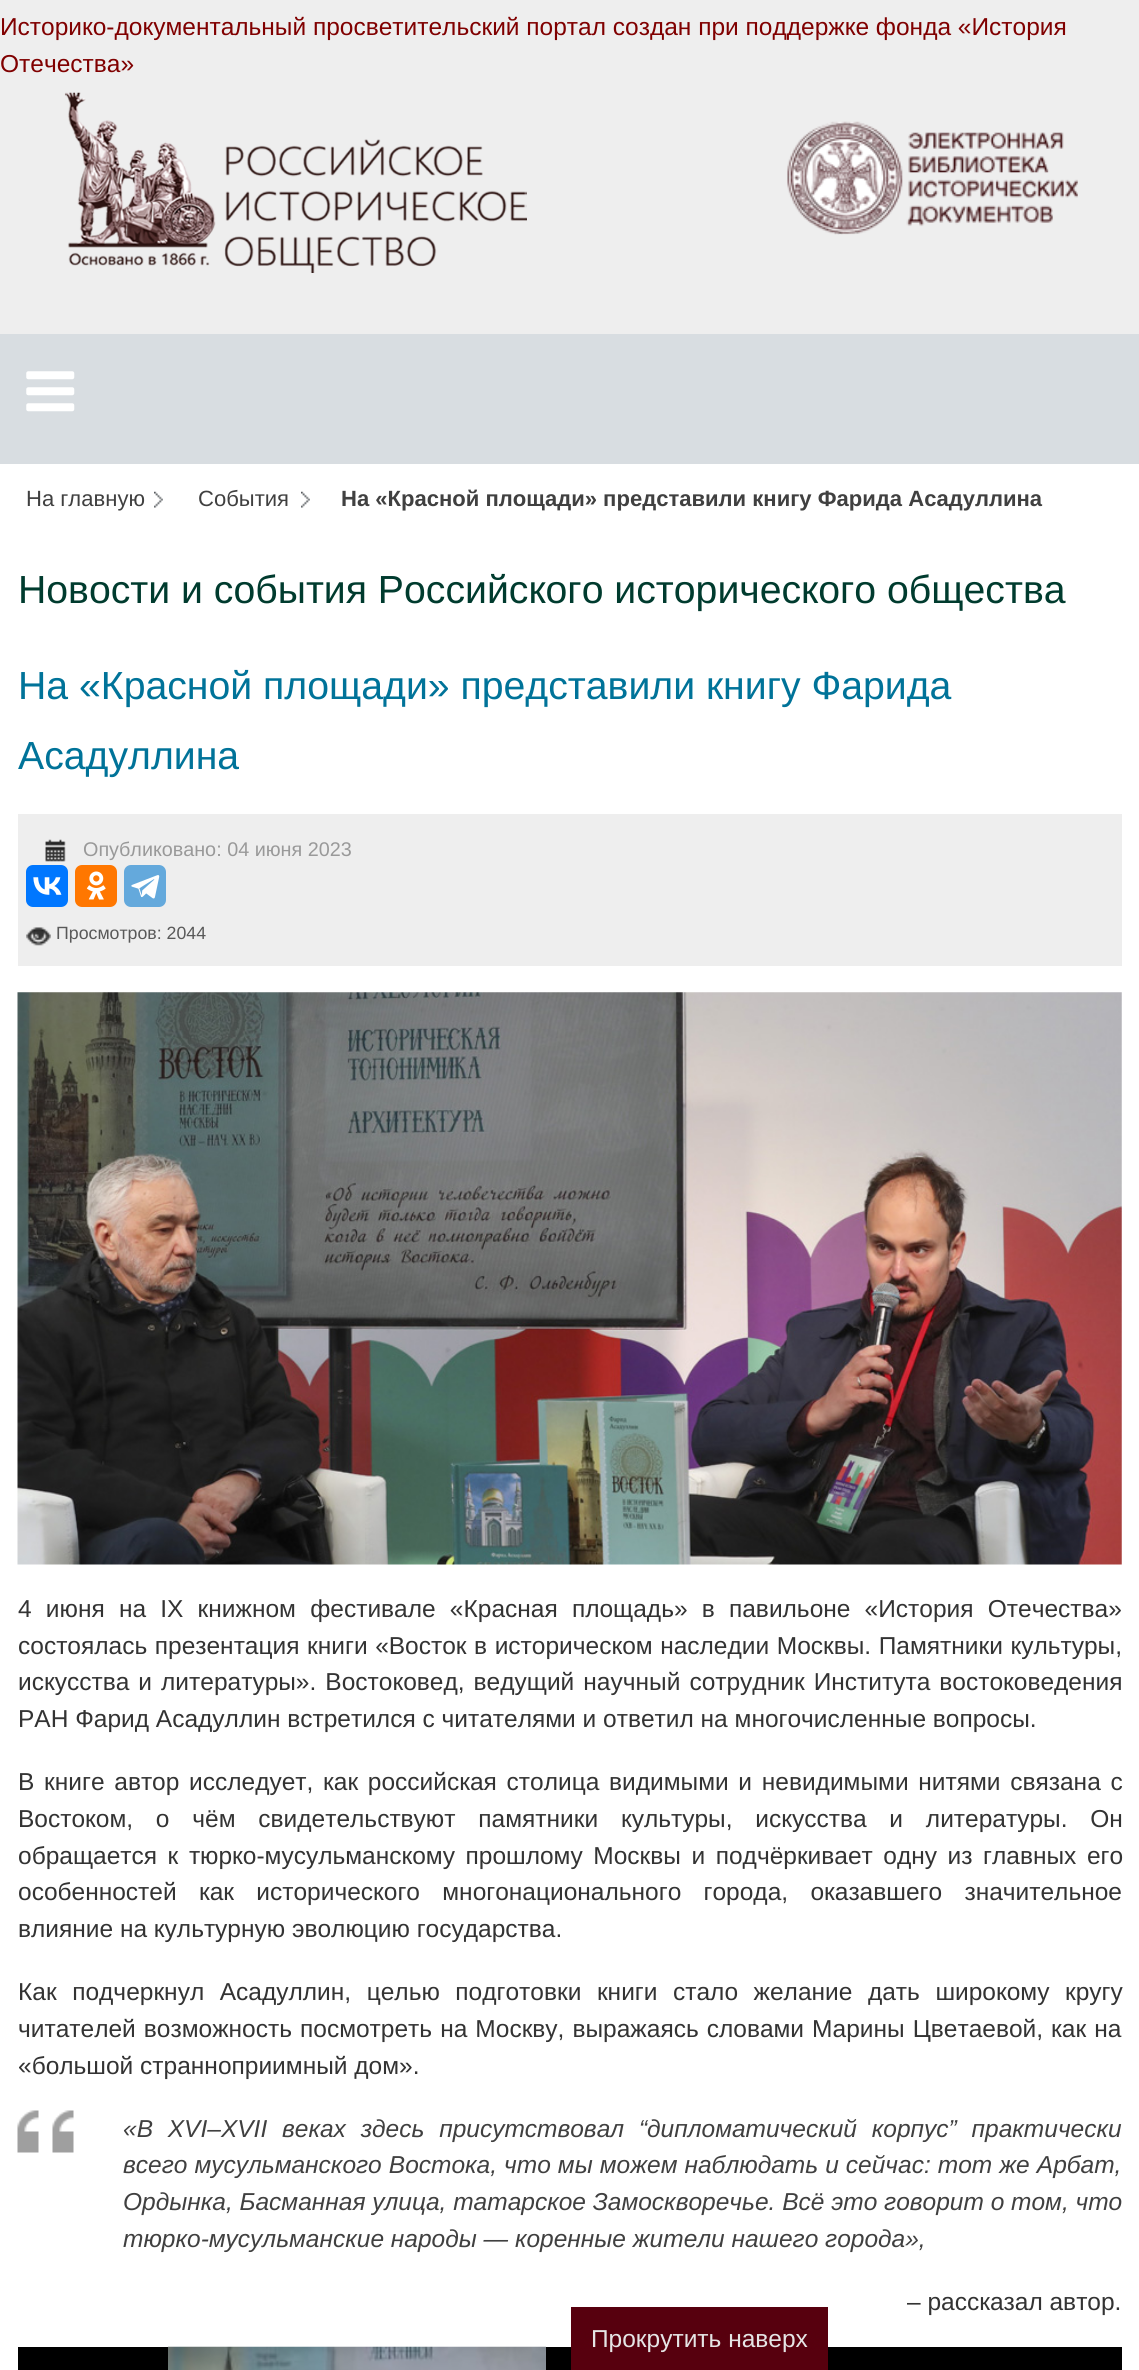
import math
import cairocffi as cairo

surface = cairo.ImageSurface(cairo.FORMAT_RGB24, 1139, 2370)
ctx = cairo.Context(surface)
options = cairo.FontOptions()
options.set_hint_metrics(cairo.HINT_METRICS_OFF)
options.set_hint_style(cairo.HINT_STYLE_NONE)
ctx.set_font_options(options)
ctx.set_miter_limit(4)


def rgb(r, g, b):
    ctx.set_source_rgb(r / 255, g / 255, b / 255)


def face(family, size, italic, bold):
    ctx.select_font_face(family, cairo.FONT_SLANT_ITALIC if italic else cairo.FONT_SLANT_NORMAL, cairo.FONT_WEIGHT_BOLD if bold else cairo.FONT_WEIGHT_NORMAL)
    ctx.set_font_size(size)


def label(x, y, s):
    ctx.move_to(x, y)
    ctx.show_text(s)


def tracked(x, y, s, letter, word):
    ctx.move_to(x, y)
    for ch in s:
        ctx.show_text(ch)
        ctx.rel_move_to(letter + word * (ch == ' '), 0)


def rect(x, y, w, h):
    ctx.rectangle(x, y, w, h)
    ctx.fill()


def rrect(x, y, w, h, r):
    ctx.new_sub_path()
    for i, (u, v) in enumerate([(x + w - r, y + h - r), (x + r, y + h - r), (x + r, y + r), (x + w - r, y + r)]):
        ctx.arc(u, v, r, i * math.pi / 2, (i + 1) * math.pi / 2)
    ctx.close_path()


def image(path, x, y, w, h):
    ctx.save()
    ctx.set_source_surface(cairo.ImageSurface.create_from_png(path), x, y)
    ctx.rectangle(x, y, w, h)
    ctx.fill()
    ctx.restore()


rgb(238, 238, 238)
ctx.paint()
face('Liberation Sans', 24.5, 0, 0)
rgb(128, 0, 0)
label(0, 35, 'Историко-документальный просветительский портал создан при поддержке фонда «История')
label(0, 72, 'Отечества»')
image('image0.png', 64, 92, 463, 181)
image('image1.png', 787, 121, 291, 114)
rgb(216, 221, 225)
rect(0, 334, 1139, 130)
image('image2.png', 26, 371, 49, 41)
rgb(255, 255, 255)
rect(0, 464, 1139, 1906)
image('image3.png', 154, 491, 9, 17)
face('Liberation Sans', 22.05, 0, 0)
rgb(64, 64, 64)
label(26, 506, 'На главную')
image('image4.png', 301, 491, 9, 17)
label(198, 506, 'События')
face('Liberation Sans', 22.05, 0, 1)
label(341, 506, 'На «Красной площади» представили книгу Фарида Асадуллина')
face('Liberation Sans', 39.2, 0, 0)
rgb(0, 59, 46)
label(18, 603, 'Новости и события Российского исторического общества')
rgb(0, 115, 153)
label(18, 699, 'На «Красной площади» представили книгу Фарида')
label(18, 769, 'Асадуллина')
rgb(238, 238, 238)
rect(18, 814, 1104, 152)
image('image5.png', 45, 839, 21, 23)
face('Liberation Sans', 19.8, 0, 0)
rgb(153, 153, 153)
label(83, 856, 'Опубликовано: 04 июня 2023')
rgb(0, 119, 255)
rrect(26, 865, 42, 42, 7)
ctx.fill()
image('image6.png', 33, 877, 29, 18)
rgb(255, 119, 0)
rrect(75, 865, 42, 42, 7)
ctx.fill()
image('image7.png', 86, 871, 20, 29)
rgb(100, 169, 220)
rrect(124, 865, 42, 42, 7)
ctx.fill()
image('image8.png', 131, 875, 29, 24)
image('image9.png', 26, 927, 25, 19)
face('Liberation Sans', 17.75, 0, 0)
rgb(89, 89, 89)
label(56, 939, 'Просмотров: 2044')
image('image10.png', 17, 992, 1105, 573)
face('Liberation Sans', 24.5, 0, 0)
rgb(51, 51, 51)
tracked(18, 1617, '4 июня на IX книжном фестивале «Красная площадь» в павильоне «История Отечества»', 0, 7.4)
tracked(18, 1654, 'состоялась презентация книги «Восток в историческом наследии Москвы. Памятники культуры,', 0, 0.75)
tracked(18, 1690, 'искусства и литературы». Востоковед, ведущий научный сотрудник Института востоковедения', 0, 2.25)
label(18, 1727, 'РАН Фарид Асадуллин встретился с читателями и ответил на многочисленные вопросы.')
tracked(18, 1790, 'В книге автор исследует, как российская столица видимыми и невидимыми нитями связана с', 0, 2.9)
tracked(18, 1827, 'Востоком, о чём свидетельствуют памятники культуры, искусства и литературы. Он', 0, 16)
tracked(18, 1864, 'обращается к тюрко-мусульманскому прошлому Москвы и подчёркивает одну из главных его', 0, 3.75)
tracked(18, 1900, 'особенностей как исторического многонационального города, оказавшего значительное', 0, 15.5)
label(18, 1937, 'влияние на культурную эволюцию государства.')
tracked(18, 2000, 'Как подчеркнул Асадуллин, целью подготовки книги стало желание дать широкому кругу', 0, 8.75)
tracked(18, 2037, 'читателей возможность посмотреть на Москву, выражаясь словами Марины Цветаевой, как на', 0, 1.25)
label(18, 2074, '«большой странноприимный дом».')
image('image11.png', 17, 2110, 57, 43)
face('Liberation Sans', 24.5, 1, 0)
rgb(64, 64, 64)
tracked(123, 2137, '«В XVI–XVII веках здесь присутствовал “дипломатический корпус” практически', 0, 8)
tracked(123, 2173, 'всего мусульманского Востока, что мы можем наблюдать и сейчас: тот же Арбат,', 0, 0.25)
label(123, 2210, 'Ордынка, Басманная улица, татарское Замоскворечье. Всё это говорит о том, что')
label(123, 2247, 'тюрко-мусульманские народы — коренные жители нашего города»,')
face('Liberation Sans', 24.5, 0, 0)
rgb(51, 51, 51)
label(907, 2310, '– рассказал автор.')
rgb(0, 0, 0)
rect(18, 2347, 1104, 23)
image('image12.png', 168, 2346, 378, 24)
rgb(87, 0, 14)
rect(571, 2307, 257, 63)
rgb(229, 229, 229)
label(591, 2347, 'Прокрутить наверх')
surface.write_to_png('render.png')
